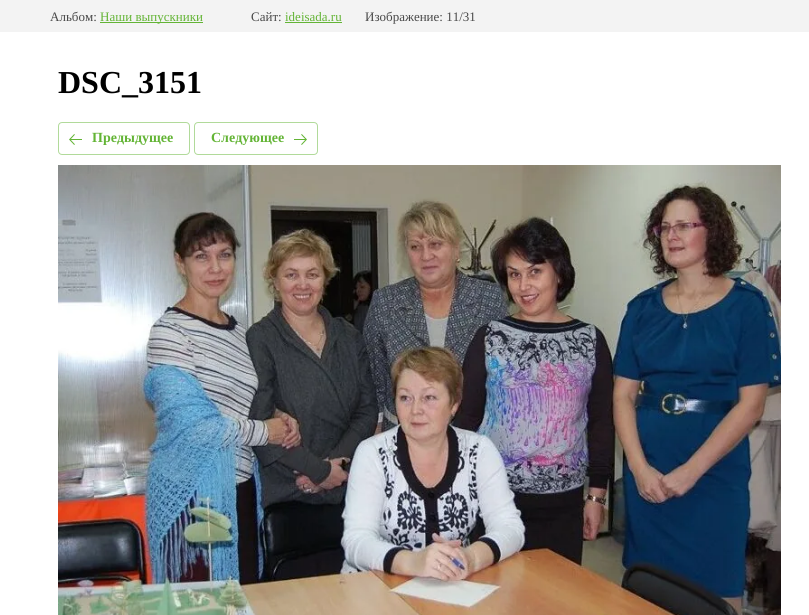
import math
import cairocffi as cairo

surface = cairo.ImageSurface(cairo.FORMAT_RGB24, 809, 615)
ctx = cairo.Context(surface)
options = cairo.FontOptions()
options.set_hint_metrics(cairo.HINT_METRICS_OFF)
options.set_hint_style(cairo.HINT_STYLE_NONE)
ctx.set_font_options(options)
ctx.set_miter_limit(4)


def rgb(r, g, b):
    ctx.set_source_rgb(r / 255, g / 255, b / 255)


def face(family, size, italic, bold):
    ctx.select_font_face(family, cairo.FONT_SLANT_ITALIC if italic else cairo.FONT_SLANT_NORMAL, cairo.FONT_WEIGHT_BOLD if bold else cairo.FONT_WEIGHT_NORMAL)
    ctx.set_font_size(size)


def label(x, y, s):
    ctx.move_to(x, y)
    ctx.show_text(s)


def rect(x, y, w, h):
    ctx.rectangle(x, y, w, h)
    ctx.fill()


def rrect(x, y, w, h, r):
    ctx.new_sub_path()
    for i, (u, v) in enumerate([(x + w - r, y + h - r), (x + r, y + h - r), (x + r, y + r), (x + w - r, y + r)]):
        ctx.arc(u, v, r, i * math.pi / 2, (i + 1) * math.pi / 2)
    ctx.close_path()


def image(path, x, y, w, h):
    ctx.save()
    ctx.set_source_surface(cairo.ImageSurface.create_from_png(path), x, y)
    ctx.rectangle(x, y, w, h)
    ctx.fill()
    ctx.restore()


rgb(255, 255, 255)
ctx.paint()
rgb(243, 243, 243)
rect(0, 0, 809, 32)
face('Liberation Serif', 13, 0, 0)
rgb(72, 72, 72)
label(50, 21, 'Альбом:')
rgb(99, 180, 53)
rect(100, 22, 103, 1)
label(100, 21, 'Наши выпускники')
rgb(72, 72, 72)
label(251, 21, 'Сайт:')
rgb(99, 180, 53)
label(285, 21, 'ideisada.ru')
rect(285, 22, 57, 1)
rgb(72, 72, 72)
label(365, 21, 'Изображение: 11/31')
face('Liberation Serif', 32, 0, 1)
rgb(0, 0, 0)
label(58, 93, 'DSC_3151')
rrect(58.5, 122.5, 131, 32, 3.5)
rgb(177, 218, 154)
ctx.set_line_width(1)
ctx.stroke()
image('image0.png', 69, 134, 13, 11)
face('Liberation Serif', 14, 0, 1)
rgb(99, 180, 53)
label(92, 142, 'Предыдущее')
rrect(194.5, 122.5, 123, 32, 3.5)
rgb(177, 218, 154)
ctx.stroke()
rgb(99, 180, 53)
label(211, 142, 'Следующее')
image('image1.png', 294, 134, 13, 11)
image('image2.png', 58, 165, 723, 450)
surface.write_to_png('render.png')
